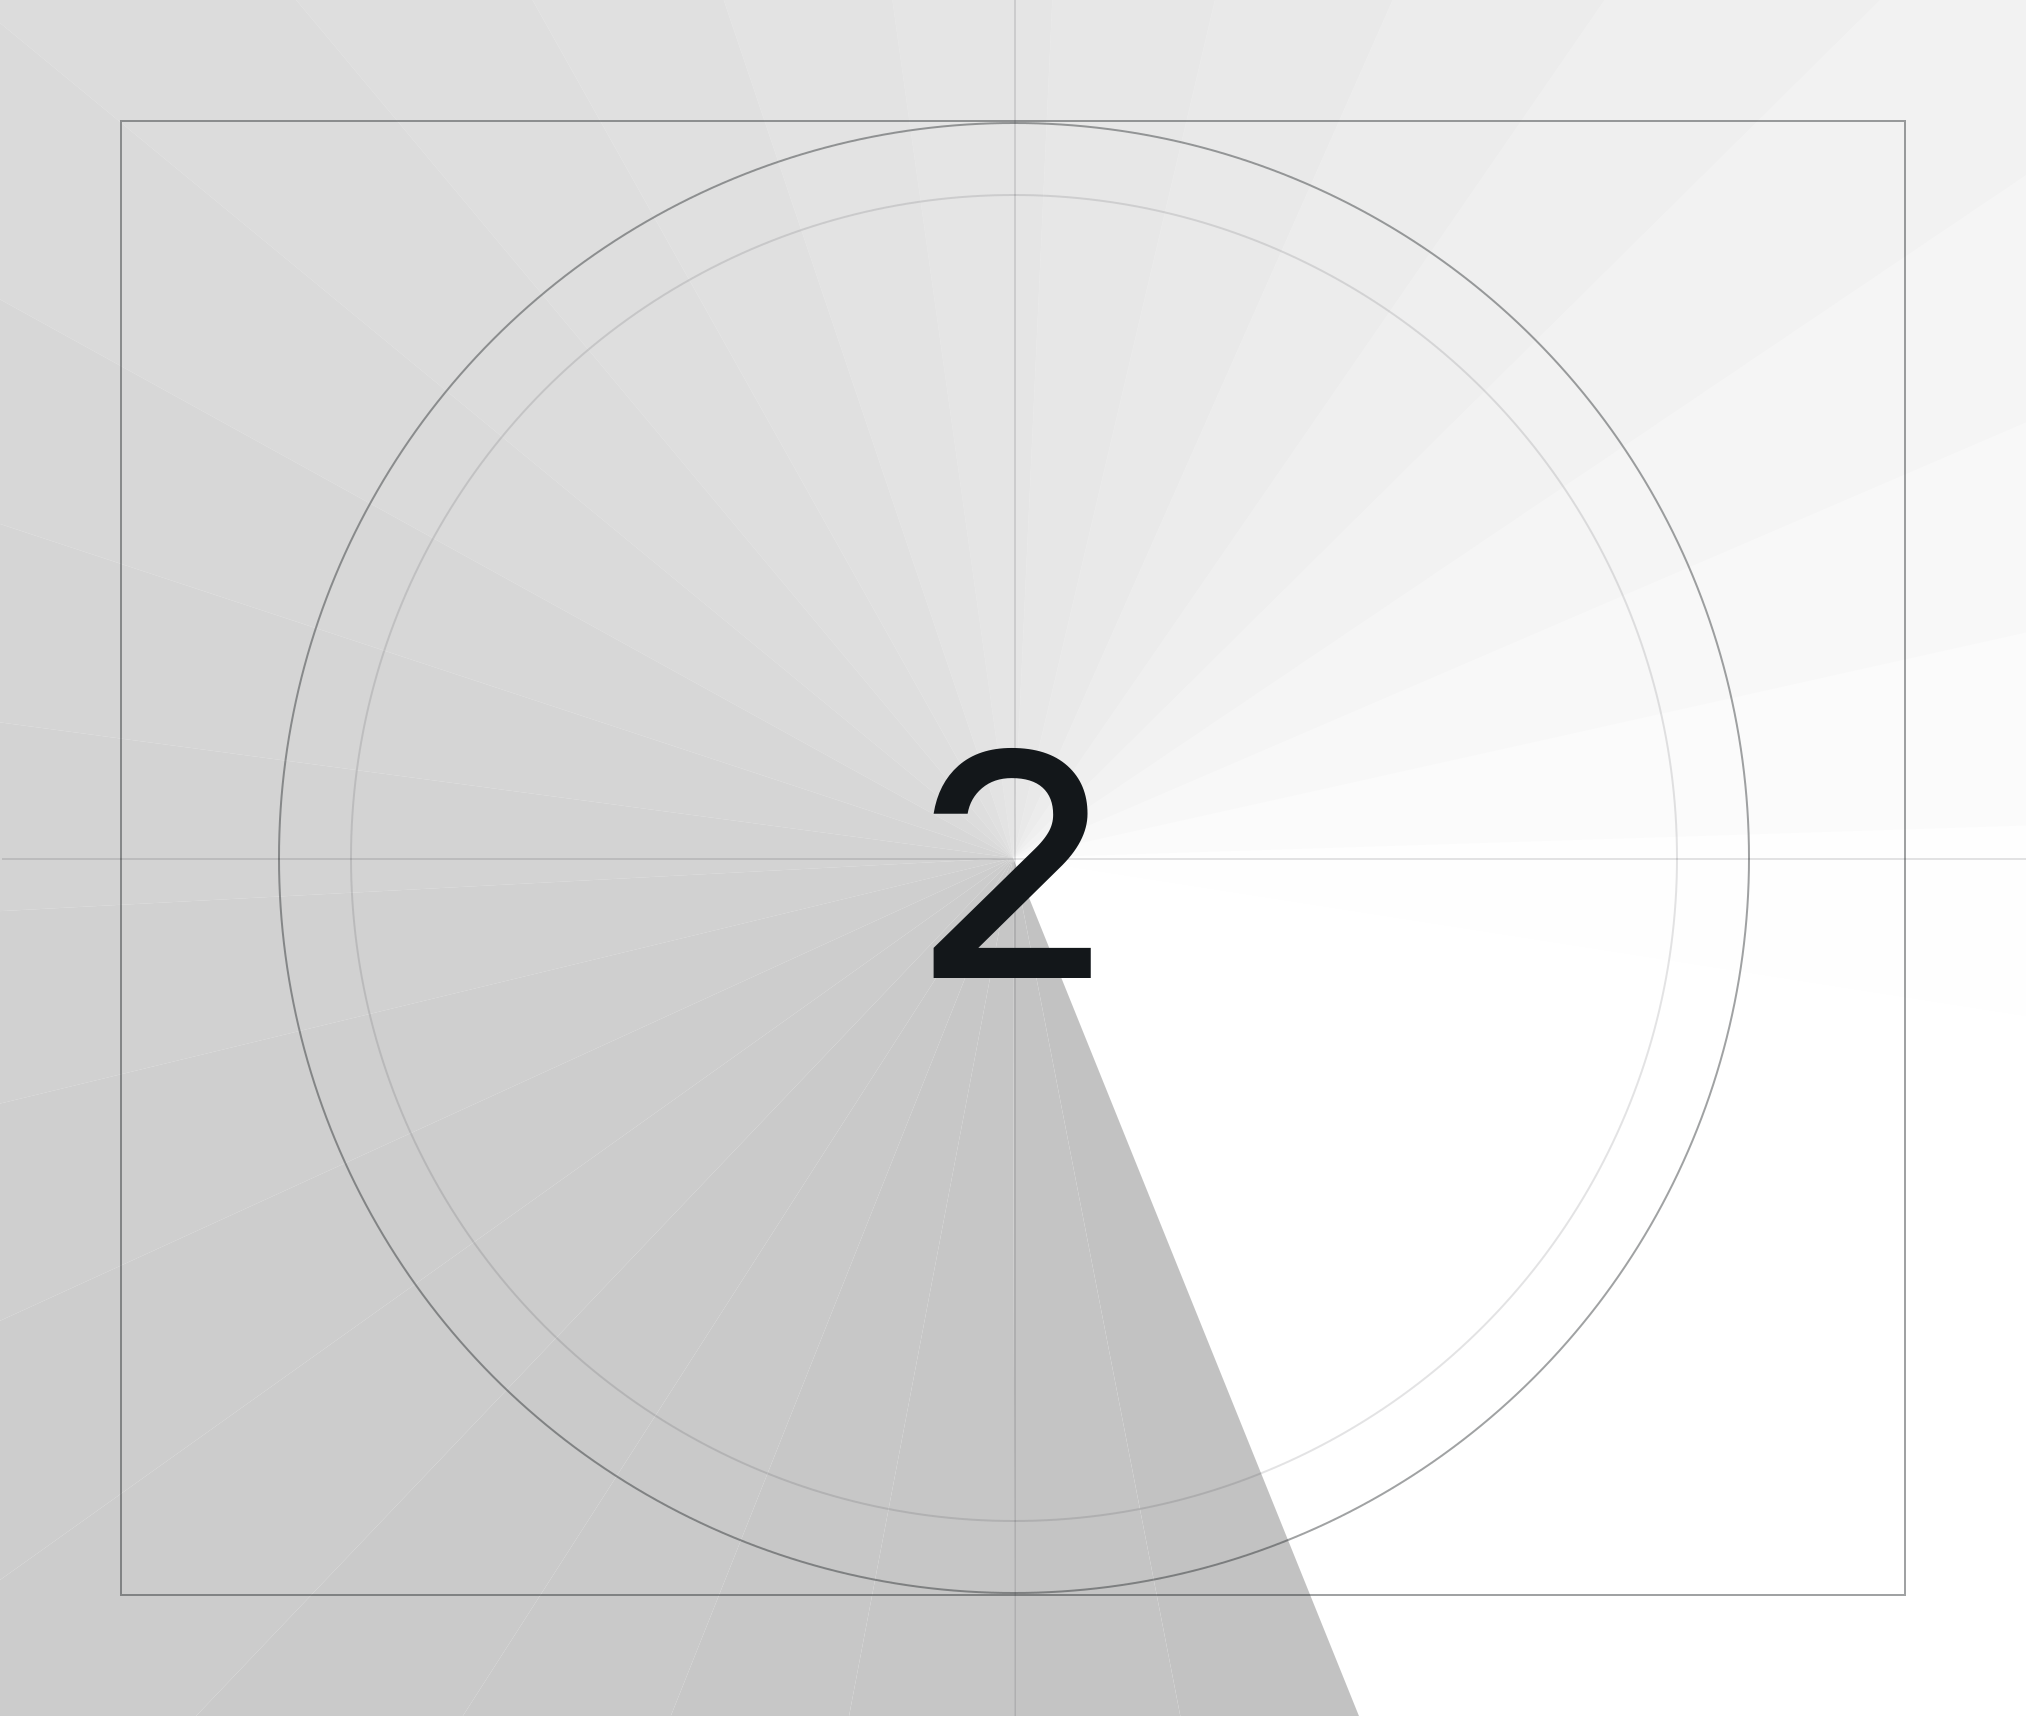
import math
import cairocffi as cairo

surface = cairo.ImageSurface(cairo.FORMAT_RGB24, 2026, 1716)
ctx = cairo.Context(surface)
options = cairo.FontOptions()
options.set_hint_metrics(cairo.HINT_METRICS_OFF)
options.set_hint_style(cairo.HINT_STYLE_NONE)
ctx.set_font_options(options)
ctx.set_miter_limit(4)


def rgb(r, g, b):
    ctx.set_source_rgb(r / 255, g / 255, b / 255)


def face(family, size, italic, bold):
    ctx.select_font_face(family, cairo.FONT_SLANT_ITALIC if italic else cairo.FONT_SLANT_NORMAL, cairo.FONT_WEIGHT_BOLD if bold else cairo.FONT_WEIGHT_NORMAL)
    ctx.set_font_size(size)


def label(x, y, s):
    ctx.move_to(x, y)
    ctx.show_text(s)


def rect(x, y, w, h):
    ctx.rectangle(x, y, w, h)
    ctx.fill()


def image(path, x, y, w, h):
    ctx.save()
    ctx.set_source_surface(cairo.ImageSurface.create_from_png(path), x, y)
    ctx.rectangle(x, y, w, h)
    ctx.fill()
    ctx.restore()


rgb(255, 255, 255)
ctx.paint()
image('image0.png', 0, 0, 2026, 1716)
ctx.set_source_rgba(0.075, 0.09, 0.102, 0.12)
rect(2, 858, 2024, 2)
rect(1014, 0, 2, 1716)
ctx.rectangle(121, 121, 1784, 1474)
ctx.set_source_rgba(0.075, 0.09, 0.102, 0.4)
ctx.stroke()
ctx.arc(1014, 858, 735, 0, 2 * math.pi)
ctx.stroke()
ctx.arc(1014, 858, 663, 0, 2 * math.pi)
ctx.set_source_rgba(0.075, 0.09, 0.102, 0.12)
ctx.stroke()
face('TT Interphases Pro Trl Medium', 324, 0, 0)
rgb(19, 23, 26)
label(920, 978, '2')
surface.write_to_png('render.png')
